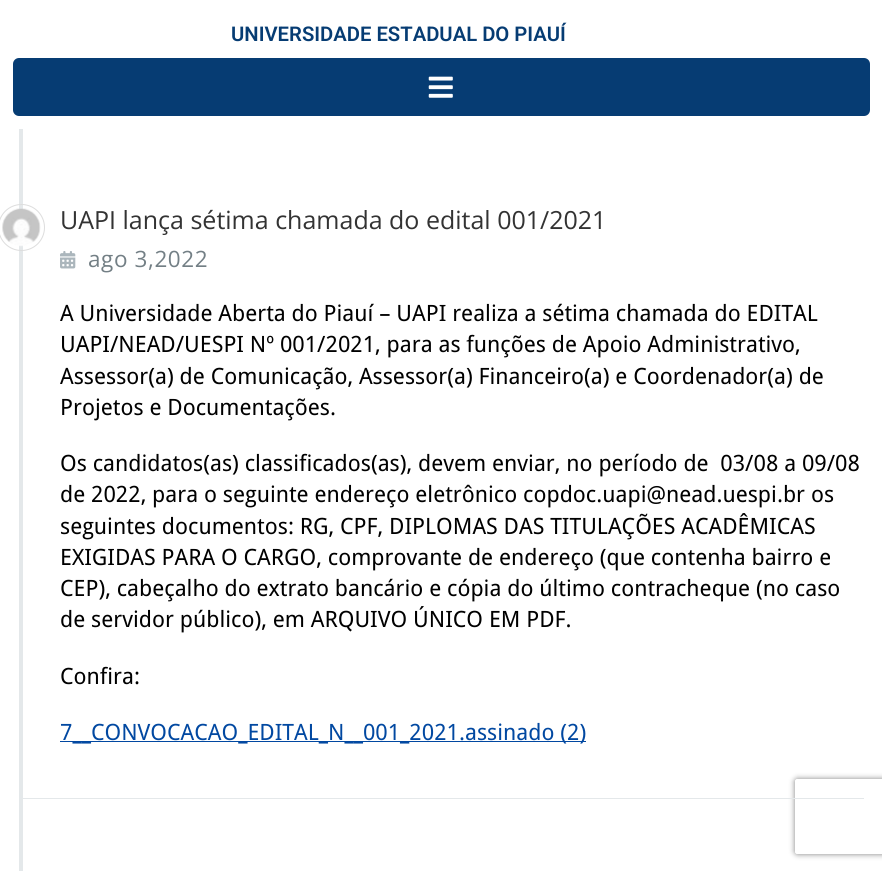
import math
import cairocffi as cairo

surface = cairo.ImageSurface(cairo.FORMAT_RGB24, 882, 871)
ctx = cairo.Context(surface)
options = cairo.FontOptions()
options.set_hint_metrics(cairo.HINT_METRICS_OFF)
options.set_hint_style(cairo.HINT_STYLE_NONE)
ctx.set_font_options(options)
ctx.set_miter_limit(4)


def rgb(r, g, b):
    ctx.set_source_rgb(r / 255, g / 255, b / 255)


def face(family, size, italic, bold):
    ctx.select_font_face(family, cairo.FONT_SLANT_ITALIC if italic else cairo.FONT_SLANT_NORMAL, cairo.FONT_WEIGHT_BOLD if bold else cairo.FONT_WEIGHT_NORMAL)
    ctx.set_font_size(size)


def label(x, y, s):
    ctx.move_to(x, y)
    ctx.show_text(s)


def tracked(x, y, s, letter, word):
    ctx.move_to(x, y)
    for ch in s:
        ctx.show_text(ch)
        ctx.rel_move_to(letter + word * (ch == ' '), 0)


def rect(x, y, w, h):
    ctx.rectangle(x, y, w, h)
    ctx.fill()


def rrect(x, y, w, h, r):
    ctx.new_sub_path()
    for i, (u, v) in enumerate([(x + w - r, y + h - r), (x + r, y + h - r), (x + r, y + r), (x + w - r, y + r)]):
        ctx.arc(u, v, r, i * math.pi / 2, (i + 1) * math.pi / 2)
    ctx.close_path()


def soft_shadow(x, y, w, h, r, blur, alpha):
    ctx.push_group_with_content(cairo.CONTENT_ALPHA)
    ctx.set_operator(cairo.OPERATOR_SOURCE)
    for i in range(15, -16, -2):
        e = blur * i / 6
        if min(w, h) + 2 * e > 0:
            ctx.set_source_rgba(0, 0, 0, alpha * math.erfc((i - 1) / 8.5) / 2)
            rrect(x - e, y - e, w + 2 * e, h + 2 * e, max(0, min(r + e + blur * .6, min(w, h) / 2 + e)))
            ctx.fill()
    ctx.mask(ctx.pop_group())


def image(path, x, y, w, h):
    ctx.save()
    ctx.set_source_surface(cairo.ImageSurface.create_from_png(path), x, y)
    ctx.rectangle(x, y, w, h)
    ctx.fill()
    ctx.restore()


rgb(255, 255, 255)
ctx.paint()
face('Roboto SemiBold', 20.25, 0, 0)
rgb(6, 60, 115)
label(231, 41, 'UNIVERSIDADE ESTADUAL DO PIAUÍ')
rrect(13, 58, 857, 58, 6)
ctx.fill()
image('image0.png', 428, 76, 25, 22)
rgb(228, 232, 234)
rect(19, 129, 4, 742)
ctx.save()
ctx.set_fill_rule(cairo.FILL_RULE_EVEN_ODD)
ctx.new_path()
ctx.move_to(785, 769)
ctx.line_to(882, 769)
ctx.line_to(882, 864)
ctx.line_to(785, 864)
ctx.close_path()
ctx.move_to(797.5, 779)
ctx.line_to(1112.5, 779)
ctx.curve_to(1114, 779, 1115, 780, 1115, 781.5)
ctx.line_to(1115, 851.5)
ctx.curve_to(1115, 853, 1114, 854, 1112.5, 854)
ctx.line_to(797.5, 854)
ctx.curve_to(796, 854, 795, 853, 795, 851.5)
ctx.line_to(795, 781.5)
ctx.curve_to(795, 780, 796, 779, 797.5, 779)
ctx.close_path()
ctx.clip()
rgb(128, 128, 128)
soft_shadow(795, 779, 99, 75, 2.5, 3, 1)
ctx.restore()
rect(23, 798, 841, 1)
ctx.arc(21.5, 227.5, 23, 0, 2 * math.pi)
rgb(221, 221, 221)
ctx.set_line_width(1)
ctx.stroke()
image('image1.png', 2, 208, 39, 39)
face('Open Sans', 25, 0, 0)
rgb(51, 51, 51)
label(60, 229, 'UAPI lança sétima chamada do edital 001/2021')
image('image2.png', 60, 251, 16, 18)
face('Open Sans', 22.5, 0, 0)
rgb(115, 127, 133)
tracked(88, 267, 'ago 3,2022', 0.6, 0)
face('Droid Sans', 22.5, 0, 0)
rgb(0, 0, 0)
label(60, 321, 'A Universidade Aberta do Piauí – UAPI realiza a sétima chamada do EDITAL')
label(60, 352, 'UAPI/NEAD/UESPI Nº 001/2021, para as funções de Apoio Administrativo,')
label(60, 384, 'Assessor(a) de Comunicação, Assessor(a) Financeiro(a) e Coordenador(a) de')
label(60, 415, 'Projetos e Documentações.')
label(60, 471, 'Os candidatos(as) classificados(as), devem enviar, no período de  03/08 a 09/08')
label(60, 502, 'de 2022, para o seguinte endereço eletrônico copdoc.uapi@nead.uespi.br os')
label(60, 534, 'seguintes documentos: RG, CPF, DIPLOMAS DAS TITULAÇÕES ACADÊMICAS')
label(60, 565, 'EXIGIDAS PARA O CARGO, comprovante de endereço (que contenha bairro e')
label(60, 596, 'CEP), cabeçalho do extrato bancário e cópia do último contracheque (no caso')
label(60, 627, 'de servidor público), em ARQUIVO ÚNICO EM PDF.')
label(60, 684, 'Confira:')
rgb(1, 72, 161)
rect(60, 741, 526, 1)
label(60, 740, '7__CONVOCACAO_EDITAL_N__001_2021.assinado (2)')
surface.write_to_png('render.png')
